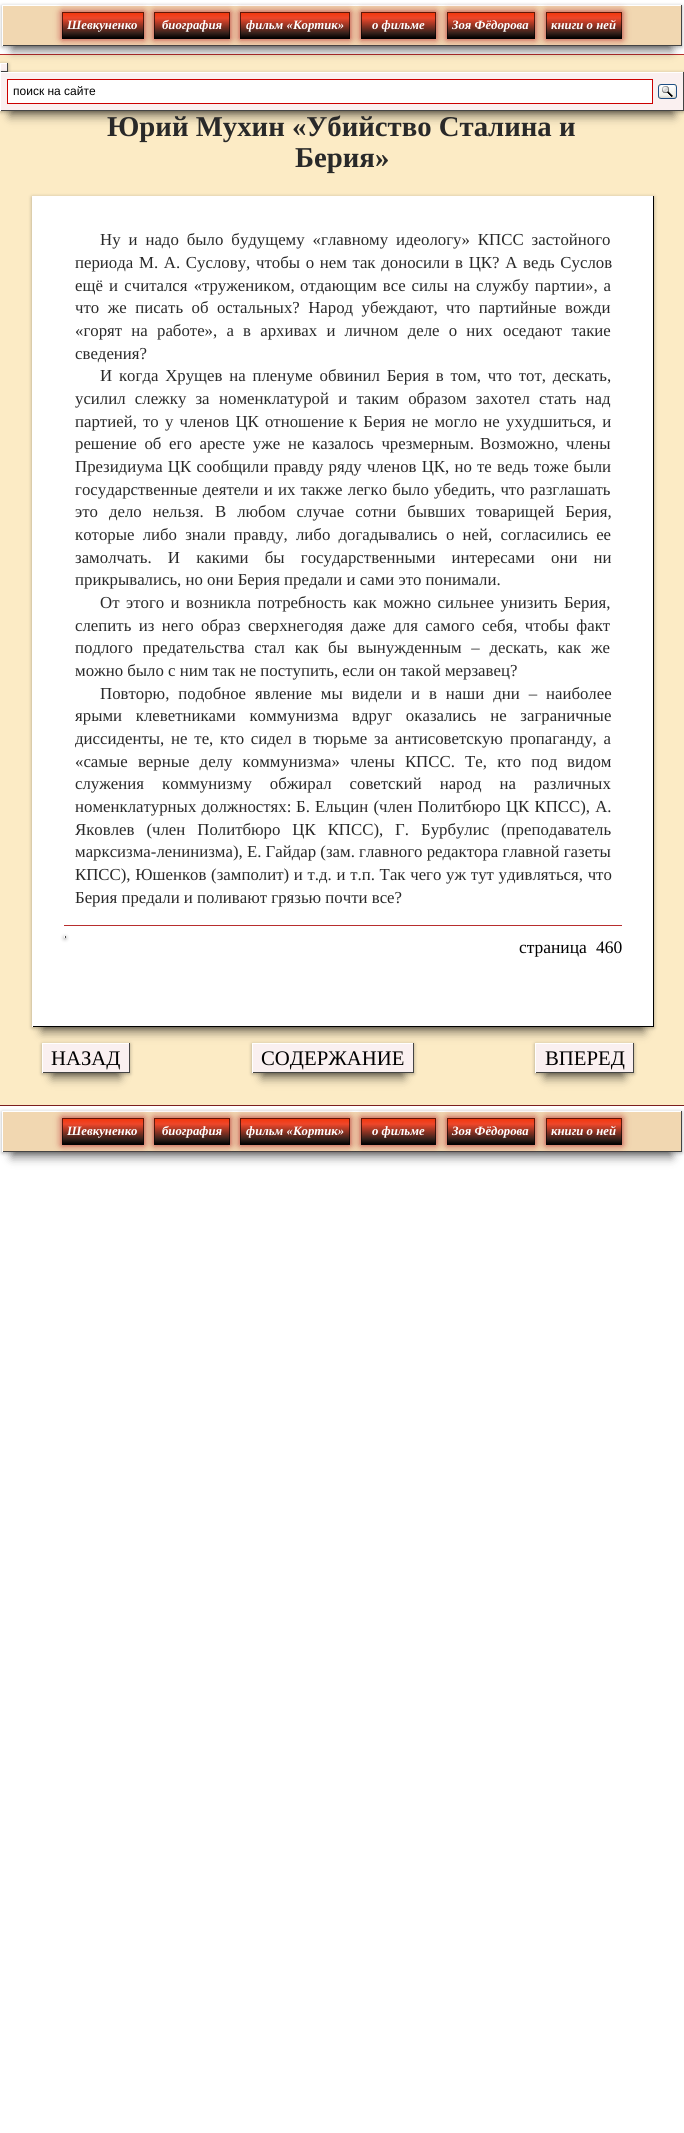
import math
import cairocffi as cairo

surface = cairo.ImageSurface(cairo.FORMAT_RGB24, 684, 2133)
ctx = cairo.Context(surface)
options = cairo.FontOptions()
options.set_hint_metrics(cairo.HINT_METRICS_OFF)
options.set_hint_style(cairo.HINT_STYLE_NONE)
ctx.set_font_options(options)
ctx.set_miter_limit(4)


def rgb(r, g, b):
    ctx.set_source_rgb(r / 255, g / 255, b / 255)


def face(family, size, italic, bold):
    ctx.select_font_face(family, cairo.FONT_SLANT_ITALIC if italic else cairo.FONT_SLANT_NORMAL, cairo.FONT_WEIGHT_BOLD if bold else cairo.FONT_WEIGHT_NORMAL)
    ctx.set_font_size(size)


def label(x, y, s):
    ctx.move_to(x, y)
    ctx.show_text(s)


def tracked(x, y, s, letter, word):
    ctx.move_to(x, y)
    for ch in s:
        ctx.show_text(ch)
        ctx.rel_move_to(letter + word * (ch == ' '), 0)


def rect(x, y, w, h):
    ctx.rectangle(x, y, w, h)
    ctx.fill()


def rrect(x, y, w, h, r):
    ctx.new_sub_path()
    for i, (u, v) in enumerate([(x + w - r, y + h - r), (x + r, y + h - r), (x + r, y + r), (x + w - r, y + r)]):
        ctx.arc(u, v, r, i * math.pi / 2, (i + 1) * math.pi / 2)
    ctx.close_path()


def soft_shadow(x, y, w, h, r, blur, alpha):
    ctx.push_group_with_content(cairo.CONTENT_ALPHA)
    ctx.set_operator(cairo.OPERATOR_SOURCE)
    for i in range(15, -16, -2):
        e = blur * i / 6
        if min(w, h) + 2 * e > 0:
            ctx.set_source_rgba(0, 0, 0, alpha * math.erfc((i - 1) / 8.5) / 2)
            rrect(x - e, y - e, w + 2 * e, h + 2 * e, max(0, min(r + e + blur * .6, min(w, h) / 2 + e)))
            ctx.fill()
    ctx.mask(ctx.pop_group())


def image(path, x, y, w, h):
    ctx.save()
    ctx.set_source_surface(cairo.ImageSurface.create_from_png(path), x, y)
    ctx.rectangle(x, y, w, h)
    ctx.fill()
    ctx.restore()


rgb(255, 255, 255)
ctx.paint()
rgb(0, 0, 0)
soft_shadow(2, 6, 680, 41, 0, 2, 0.3)
rgb(252, 235, 197)
rect(0, 55, 684, 1050)
rgb(184, 46, 46)
rect(0, 54, 684, 1)
rgb(0, 0, 0)
soft_shadow(12, 30, 660, 21, 0, 5, 0.5)
rgb(241, 215, 177)
rect(3, 6, 678, 39)
rgb(255, 255, 255)
rect(2, 5, 680, 1)
rgb(68, 68, 68)
rect(681, 5, 1, 41)
rect(2, 45, 680, 1)
rgb(255, 255, 255)
rect(2, 5, 1, 41)
rgb(184, 46, 46)
soft_shadow(62, 12, 82, 27, 0, 4, 1)
gradient = cairo.LinearGradient(103, -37, 103, 13)
gradient.add_color_stop_rgba(0, 0.949, 0.216, 0.051, 1)
gradient.add_color_stop_rgba(0.1, 0.937, 0.278, 0.165, 1)
gradient.add_color_stop_rgba(0.4, 0.212, 0.129, 0.106, 1)
gradient.add_color_stop_rgba(0.5, 0.016, 0.004, 0.004, 1)
gradient.add_color_stop_rgba(0.6, 0.212, 0.129, 0.106, 1)
gradient.add_color_stop_rgba(0.9, 0.937, 0.278, 0.165, 1)
gradient.add_color_stop_rgba(1, 0.949, 0.216, 0.051, 1)
ctx.set_source(gradient)
rect(62, 12, 82, 1)
gradient = cairo.LinearGradient(103, 13, 103, 63)
gradient.add_color_stop_rgba(0, 0.949, 0.216, 0.051, 1)
gradient.add_color_stop_rgba(0.1, 0.937, 0.278, 0.165, 1)
gradient.add_color_stop_rgba(0.4, 0.212, 0.129, 0.106, 1)
gradient.add_color_stop_rgba(0.5, 0.016, 0.004, 0.004, 1)
gradient.add_color_stop_rgba(0.6, 0.212, 0.129, 0.106, 1)
gradient.add_color_stop_rgba(0.9, 0.937, 0.278, 0.165, 1)
gradient.add_color_stop_rgba(1, 0.949, 0.216, 0.051, 1)
ctx.set_source(gradient)
rect(62, 13, 82, 26)
ctx.rectangle(62.5, 12.5, 81, 26)
ctx.set_source_rgba(0, 0, 0, 0.6)
ctx.set_line_width(1)
ctx.stroke()
face('Liberation Serif', 12.75, 1, 1)
rgb(255, 255, 255)
label(67, 29, 'Шевкуненко')
rgb(184, 46, 46)
soft_shadow(154, 12, 76, 27, 0, 4, 1)
gradient = cairo.LinearGradient(192, -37, 192, 13)
gradient.add_color_stop_rgba(0, 0.949, 0.216, 0.051, 1)
gradient.add_color_stop_rgba(0.1, 0.937, 0.278, 0.165, 1)
gradient.add_color_stop_rgba(0.4, 0.212, 0.129, 0.106, 1)
gradient.add_color_stop_rgba(0.5, 0.016, 0.004, 0.004, 1)
gradient.add_color_stop_rgba(0.6, 0.212, 0.129, 0.106, 1)
gradient.add_color_stop_rgba(0.9, 0.937, 0.278, 0.165, 1)
gradient.add_color_stop_rgba(1, 0.949, 0.216, 0.051, 1)
ctx.set_source(gradient)
rect(154, 12, 76, 1)
gradient = cairo.LinearGradient(192, 13, 192, 63)
gradient.add_color_stop_rgba(0, 0.949, 0.216, 0.051, 1)
gradient.add_color_stop_rgba(0.1, 0.937, 0.278, 0.165, 1)
gradient.add_color_stop_rgba(0.4, 0.212, 0.129, 0.106, 1)
gradient.add_color_stop_rgba(0.5, 0.016, 0.004, 0.004, 1)
gradient.add_color_stop_rgba(0.6, 0.212, 0.129, 0.106, 1)
gradient.add_color_stop_rgba(0.9, 0.937, 0.278, 0.165, 1)
gradient.add_color_stop_rgba(1, 0.949, 0.216, 0.051, 1)
ctx.set_source(gradient)
rect(154, 13, 76, 26)
ctx.rectangle(154.5, 12.5, 75, 26)
ctx.set_source_rgba(0, 0, 0, 0.6)
ctx.stroke()
rgb(255, 255, 255)
label(162, 29, 'биография')
rgb(184, 46, 46)
soft_shadow(240, 12, 110, 27, 0, 4, 1)
gradient = cairo.LinearGradient(295, -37, 295, 13)
gradient.add_color_stop_rgba(0, 0.949, 0.216, 0.051, 1)
gradient.add_color_stop_rgba(0.1, 0.937, 0.278, 0.165, 1)
gradient.add_color_stop_rgba(0.4, 0.212, 0.129, 0.106, 1)
gradient.add_color_stop_rgba(0.5, 0.016, 0.004, 0.004, 1)
gradient.add_color_stop_rgba(0.6, 0.212, 0.129, 0.106, 1)
gradient.add_color_stop_rgba(0.9, 0.937, 0.278, 0.165, 1)
gradient.add_color_stop_rgba(1, 0.949, 0.216, 0.051, 1)
ctx.set_source(gradient)
rect(240, 12, 110, 1)
gradient = cairo.LinearGradient(295, 13, 295, 63)
gradient.add_color_stop_rgba(0, 0.949, 0.216, 0.051, 1)
gradient.add_color_stop_rgba(0.1, 0.937, 0.278, 0.165, 1)
gradient.add_color_stop_rgba(0.4, 0.212, 0.129, 0.106, 1)
gradient.add_color_stop_rgba(0.5, 0.016, 0.004, 0.004, 1)
gradient.add_color_stop_rgba(0.6, 0.212, 0.129, 0.106, 1)
gradient.add_color_stop_rgba(0.9, 0.937, 0.278, 0.165, 1)
gradient.add_color_stop_rgba(1, 0.949, 0.216, 0.051, 1)
ctx.set_source(gradient)
rect(240, 13, 110, 26)
ctx.rectangle(240.5, 12.5, 109, 26)
ctx.set_source_rgba(0, 0, 0, 0.6)
ctx.stroke()
rgb(255, 255, 255)
label(246, 29, 'фильм «Кортик»')
rgb(184, 46, 46)
soft_shadow(361, 12, 75, 27, 0, 4, 1)
gradient = cairo.LinearGradient(399, -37, 399, 13)
gradient.add_color_stop_rgba(0, 0.949, 0.216, 0.051, 1)
gradient.add_color_stop_rgba(0.1, 0.937, 0.278, 0.165, 1)
gradient.add_color_stop_rgba(0.4, 0.212, 0.129, 0.106, 1)
gradient.add_color_stop_rgba(0.5, 0.016, 0.004, 0.004, 1)
gradient.add_color_stop_rgba(0.6, 0.212, 0.129, 0.106, 1)
gradient.add_color_stop_rgba(0.9, 0.937, 0.278, 0.165, 1)
gradient.add_color_stop_rgba(1, 0.949, 0.216, 0.051, 1)
ctx.set_source(gradient)
rect(361, 12, 75, 1)
gradient = cairo.LinearGradient(399, 13, 399, 63)
gradient.add_color_stop_rgba(0, 0.949, 0.216, 0.051, 1)
gradient.add_color_stop_rgba(0.1, 0.937, 0.278, 0.165, 1)
gradient.add_color_stop_rgba(0.4, 0.212, 0.129, 0.106, 1)
gradient.add_color_stop_rgba(0.5, 0.016, 0.004, 0.004, 1)
gradient.add_color_stop_rgba(0.6, 0.212, 0.129, 0.106, 1)
gradient.add_color_stop_rgba(0.9, 0.937, 0.278, 0.165, 1)
gradient.add_color_stop_rgba(1, 0.949, 0.216, 0.051, 1)
ctx.set_source(gradient)
rect(361, 13, 75, 26)
ctx.rectangle(361.5, 12.5, 74, 26)
ctx.set_source_rgba(0, 0, 0, 0.6)
ctx.stroke()
rgb(255, 255, 255)
label(372, 29, 'о фильме')
rgb(184, 46, 46)
soft_shadow(447, 12, 88, 27, 0, 4, 1)
gradient = cairo.LinearGradient(491, -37, 491, 13)
gradient.add_color_stop_rgba(0, 0.949, 0.216, 0.051, 1)
gradient.add_color_stop_rgba(0.1, 0.937, 0.278, 0.165, 1)
gradient.add_color_stop_rgba(0.4, 0.212, 0.129, 0.106, 1)
gradient.add_color_stop_rgba(0.5, 0.016, 0.004, 0.004, 1)
gradient.add_color_stop_rgba(0.6, 0.212, 0.129, 0.106, 1)
gradient.add_color_stop_rgba(0.9, 0.937, 0.278, 0.165, 1)
gradient.add_color_stop_rgba(1, 0.949, 0.216, 0.051, 1)
ctx.set_source(gradient)
rect(447, 12, 88, 1)
gradient = cairo.LinearGradient(491, 13, 491, 63)
gradient.add_color_stop_rgba(0, 0.949, 0.216, 0.051, 1)
gradient.add_color_stop_rgba(0.1, 0.937, 0.278, 0.165, 1)
gradient.add_color_stop_rgba(0.4, 0.212, 0.129, 0.106, 1)
gradient.add_color_stop_rgba(0.5, 0.016, 0.004, 0.004, 1)
gradient.add_color_stop_rgba(0.6, 0.212, 0.129, 0.106, 1)
gradient.add_color_stop_rgba(0.9, 0.937, 0.278, 0.165, 1)
gradient.add_color_stop_rgba(1, 0.949, 0.216, 0.051, 1)
ctx.set_source(gradient)
rect(447, 13, 88, 26)
ctx.rectangle(447.5, 12.5, 87, 26)
ctx.set_source_rgba(0, 0, 0, 0.6)
ctx.stroke()
rgb(255, 255, 255)
label(452, 29, 'Зоя Фёдорова')
rgb(184, 46, 46)
soft_shadow(546, 12, 76, 27, 0, 4, 1)
gradient = cairo.LinearGradient(584, -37, 584, 13)
gradient.add_color_stop_rgba(0, 0.949, 0.216, 0.051, 1)
gradient.add_color_stop_rgba(0.1, 0.937, 0.278, 0.165, 1)
gradient.add_color_stop_rgba(0.4, 0.212, 0.129, 0.106, 1)
gradient.add_color_stop_rgba(0.5, 0.016, 0.004, 0.004, 1)
gradient.add_color_stop_rgba(0.6, 0.212, 0.129, 0.106, 1)
gradient.add_color_stop_rgba(0.9, 0.937, 0.278, 0.165, 1)
gradient.add_color_stop_rgba(1, 0.949, 0.216, 0.051, 1)
ctx.set_source(gradient)
rect(546, 12, 76, 1)
gradient = cairo.LinearGradient(584, 13, 584, 63)
gradient.add_color_stop_rgba(0, 0.949, 0.216, 0.051, 1)
gradient.add_color_stop_rgba(0.1, 0.937, 0.278, 0.165, 1)
gradient.add_color_stop_rgba(0.4, 0.212, 0.129, 0.106, 1)
gradient.add_color_stop_rgba(0.5, 0.016, 0.004, 0.004, 1)
gradient.add_color_stop_rgba(0.6, 0.212, 0.129, 0.106, 1)
gradient.add_color_stop_rgba(0.9, 0.937, 0.278, 0.165, 1)
gradient.add_color_stop_rgba(1, 0.949, 0.216, 0.051, 1)
ctx.set_source(gradient)
rect(546, 13, 76, 26)
ctx.rectangle(546.5, 12.5, 75, 26)
ctx.set_source_rgba(0, 0, 0, 0.6)
ctx.stroke()
rgb(255, 255, 255)
label(551, 29, 'книги о ней')
rgb(123, 31, 31)
rect(0, 1105, 684, 1)
rgb(0, 0, 0)
soft_shadow(0, 64, 8, 9, 0, 2, 0.3)
rgb(250, 240, 240)
rect(1, 63, 6, 9)
rgb(255, 255, 255)
rect(0, 63, 8, 1)
rgb(68, 68, 68)
rect(7, 63, 1, 9)
rect(0, 71, 8, 1)
rgb(255, 255, 255)
rect(0, 63, 1, 9)
rgb(0, 0, 0)
soft_shadow(0, 73, 684, 39, 0, 2, 0.3)
soft_shadow(10, 97, 664, 19, 0, 5, 0.5)
rgb(250, 240, 240)
rect(1, 73, 682, 37)
rgb(255, 255, 255)
rect(0, 72, 684, 1)
rgb(68, 68, 68)
rect(683, 72, 1, 39)
rect(0, 110, 684, 1)
rgb(255, 255, 255)
rect(0, 72, 1, 39)
ctx.rectangle(7.5, 79.5, 645, 24)
ctx.fill_preserve()
rgb(204, 0, 0)
ctx.stroke()
face('Liberation Sans', 12, 0, 0)
rgb(0, 0, 0)
label(13, 95, 'поиск на сайте')
image('image0.png', 658, 84, 19, 15)
face('Liberation Serif', 28.75, 0, 1)
rgb(41, 41, 41)
label(107, 136, 'Юрий Мухин «Убийство Сталина и')
label(295, 167, 'Берия»')
rgb(0, 0, 0)
soft_shadow(32, 197, 622, 831, 0, 2, 0.3)
soft_shadow(42, 221, 602, 811, 0, 5, 0.5)
rgb(255, 255, 255)
rect(33, 196, 620, 830)
rgb(0, 0, 0)
rect(653, 196, 1, 831)
rect(32, 1026, 622, 1)
rgb(255, 255, 255)
rect(32, 196, 1, 831)
face('Liberation Serif', 16.8, 0, 0)
rgb(41, 41, 41)
tracked(100, 245, 'Ну и надо было будущему «главному идеологу» КПСС застойного', 0, 3.75)
label(75, 268, 'периода')
tracked(139, 268, 'М. А. Суслову, чтобы о нем так доносили в ЦК? А ведь Суслов', 0, 1.5)
tracked(75, 291, 'ещё и считался «тружеником,', 0, 2)
tracked(300, 291, 'отдающим все силы на службу партии», а', 0, 1.75)
tracked(75, 313, 'что же писать об остальных? Народ убеждают,', 0, 4.25)
tracked(446, 313, 'что партийные вожди', 0, 4.25)
tracked(75, 336, '«горят на работе», а в архивах и личном деле о них', 0, 5)
tracked(503, 336, 'оседают такие', 0, 5)
label(75, 359, 'сведения?')
tracked(100, 381, 'И когда Хрущев на пленуме обвинил Берия в том, что тот, дескать,', 0, 2.6)
tracked(75, 404, 'усилил слежку за', 0, 5)
tracked(219, 404, 'номенклатурой и таким образом захотел стать над', 0, 5)
tracked(75, 427, 'партией, то у членов ЦК отношение', 0, 2)
tracked(349, 427, 'к Берия не могло не ухудшиться, и', 0, 2)
tracked(75, 449, 'решение об его аресте уже не казалось чрезмерным.', 0, 3.5)
tracked(480, 449, 'Возможно, члены', 0, 3.25)
tracked(75, 472, 'Президиума ЦК сообщили правду ряду членов ЦК, но те ведь тоже были', 0, 1)
tracked(75, 495, 'государственные деятели и их также легко было убедить, что разглашать', 0, 1)
tracked(75, 517, 'это дело нельзя.', 0, 6.75)
tracked(215, 517, 'В любом случае сотни бывших товарищей Берия,', 0, 6.75)
tracked(75, 540, 'которые либо знали правду, либо догадывались', 0, 4)
tracked(446, 540, 'о ней, согласились ее', 0, 4)
tracked(75, 563, 'замолчать. И какими бы государственными интересами они ни', 0, 12)
label(75, 585, 'прикрывались, но они Берия предали и сами это понимали.')
tracked(100, 608, 'От этого и возникла потребность как можно сильнее унизить Берия,', 0, 2.25)
tracked(75, 631, 'слепить из него', 0, 3.25)
tracked(201, 631, 'образ сверхнегодяя даже для самого себя, чтобы факт', 0, 3.25)
tracked(75, 653, 'подлого предательства стал как', 0, 5.5)
tracked(328, 653, 'бы вынужденным – дескать, как же', 0, 5.5)
label(75, 676, 'можно было с ним так не поступить, если он такой мерзавец?')
tracked(100, 699, 'Повторю, подобное явление мы видели и в наши дни – наиболее', 0, 4.75)
tracked(75, 721, 'ярыми клеветниками коммунизма', 0, 9.5)
tracked(352, 721, 'вдруг оказались не заграничные', 0, 9.5)
tracked(75, 744, 'диссиденты, не те, кто сидел в тюрьме за антисоветскую', 0, 2.6)
tracked(510, 744, 'пропаганду, а', 0, 2.6)
tracked(75, 767, '«самые верные делу коммунизма» члены КПСС. Те, кто под', 0, 6)
label(567, 767, 'видом')
tracked(75, 789, 'служения коммунизму обжирал советский народ на различных', 0, 13.75)
tracked(75, 812, 'номенклатурных должностях:', 0, 1)
tracked(296, 812, 'Б. Ельцин (член Политбюро ЦК КПСС), А.', 0, 1)
tracked(75, 835, 'Яковлев (член Политбюро ЦК КПСС), Г. Бурбулис', 0, 7.75)
label(501, 835, '(преподаватель')
label(75, 857, 'марксизма-ленинизма), Е. Гайдар (зам. главного редактора главной газеты')
tracked(75, 880, 'КПСС), Юшенков (замполит) и т.д. и т.п. Так чего уж тут удивляться, что', 0, 0.5)
label(75, 903, 'Берия предали и поливают грязью почти все?')
rgb(184, 46, 46)
rect(64, 925, 558, 1)
rgb(0, 0, 0)
soft_shadow(64, 937, 2, 2, 0, 2, 0.3)
rgb(68, 68, 68)
rect(65, 936, 1, 2)
rect(64, 937, 2, 1)
rgb(255, 255, 255)
rect(64, 936, 1, 2)
face('Liberation Serif', 17.5, 0, 0)
rgb(0, 0, 0)
label(519, 953, 'страница')
label(596, 953, '460')
rgb(0, 0, 0)
soft_shadow(42, 1044, 88, 30, 0, 2, 0.3)
soft_shadow(52, 1068, 68, 10, 0, 5, 0.5)
rgb(250, 240, 240)
rect(43, 1044, 86, 28)
rgb(255, 255, 255)
rect(42, 1043, 88, 1)
rgb(68, 68, 68)
rect(129, 1043, 1, 30)
rect(42, 1072, 88, 1)
rgb(255, 255, 255)
rect(42, 1043, 1, 30)
face('Liberation Serif', 20.75, 0, 0)
rgb(0, 0, 0)
label(51, 1065, 'НАЗАД')
rgb(0, 0, 0)
soft_shadow(252, 1044, 162, 30, 0, 2, 0.3)
soft_shadow(262, 1068, 142, 10, 0, 5, 0.5)
rgb(250, 240, 240)
rect(253, 1044, 160, 28)
rgb(255, 255, 255)
rect(252, 1043, 162, 1)
rgb(68, 68, 68)
rect(413, 1043, 1, 30)
rect(252, 1072, 162, 1)
rgb(255, 255, 255)
rect(252, 1043, 1, 30)
rgb(0, 0, 0)
label(261, 1065, 'СОДЕРЖАНИЕ')
rgb(0, 0, 0)
soft_shadow(535, 1044, 99, 30, 0, 2, 0.3)
soft_shadow(545, 1068, 79, 10, 0, 5, 0.5)
rgb(250, 240, 240)
rect(536, 1044, 97, 28)
rgb(255, 255, 255)
rect(535, 1043, 99, 1)
rgb(68, 68, 68)
rect(633, 1043, 1, 30)
rect(535, 1072, 99, 1)
rgb(255, 255, 255)
rect(535, 1043, 1, 30)
rgb(0, 0, 0)
label(545, 1065, 'ВПЕРЕД')
rgb(0, 0, 0)
soft_shadow(2, 1112, 680, 41, 0, 2, 0.3)
soft_shadow(12, 1136, 660, 21, 0, 5, 0.5)
rgb(241, 215, 177)
rect(3, 1112, 678, 39)
rgb(255, 255, 255)
rect(2, 1111, 680, 1)
rgb(68, 68, 68)
rect(681, 1111, 1, 41)
rect(2, 1151, 680, 1)
rgb(255, 255, 255)
rect(2, 1111, 1, 41)
rgb(184, 46, 46)
soft_shadow(62, 1118, 82, 27, 0, 4, 1)
gradient = cairo.LinearGradient(103, 1069, 103, 1119)
gradient.add_color_stop_rgba(0, 0.949, 0.216, 0.051, 1)
gradient.add_color_stop_rgba(0.1, 0.937, 0.278, 0.165, 1)
gradient.add_color_stop_rgba(0.4, 0.212, 0.129, 0.106, 1)
gradient.add_color_stop_rgba(0.5, 0.016, 0.004, 0.004, 1)
gradient.add_color_stop_rgba(0.6, 0.212, 0.129, 0.106, 1)
gradient.add_color_stop_rgba(0.9, 0.937, 0.278, 0.165, 1)
gradient.add_color_stop_rgba(1, 0.949, 0.216, 0.051, 1)
ctx.set_source(gradient)
rect(62, 1118, 82, 1)
gradient = cairo.LinearGradient(103, 1119, 103, 1169)
gradient.add_color_stop_rgba(0, 0.949, 0.216, 0.051, 1)
gradient.add_color_stop_rgba(0.1, 0.937, 0.278, 0.165, 1)
gradient.add_color_stop_rgba(0.4, 0.212, 0.129, 0.106, 1)
gradient.add_color_stop_rgba(0.5, 0.016, 0.004, 0.004, 1)
gradient.add_color_stop_rgba(0.6, 0.212, 0.129, 0.106, 1)
gradient.add_color_stop_rgba(0.9, 0.937, 0.278, 0.165, 1)
gradient.add_color_stop_rgba(1, 0.949, 0.216, 0.051, 1)
ctx.set_source(gradient)
rect(62, 1119, 82, 26)
ctx.rectangle(62.5, 1118.5, 81, 26)
ctx.set_source_rgba(0, 0, 0, 0.6)
ctx.stroke()
face('Liberation Serif', 12.75, 1, 1)
rgb(255, 255, 255)
label(67, 1135, 'Шевкуненко')
rgb(184, 46, 46)
soft_shadow(154, 1118, 76, 27, 0, 4, 1)
gradient = cairo.LinearGradient(192, 1069, 192, 1119)
gradient.add_color_stop_rgba(0, 0.949, 0.216, 0.051, 1)
gradient.add_color_stop_rgba(0.1, 0.937, 0.278, 0.165, 1)
gradient.add_color_stop_rgba(0.4, 0.212, 0.129, 0.106, 1)
gradient.add_color_stop_rgba(0.5, 0.016, 0.004, 0.004, 1)
gradient.add_color_stop_rgba(0.6, 0.212, 0.129, 0.106, 1)
gradient.add_color_stop_rgba(0.9, 0.937, 0.278, 0.165, 1)
gradient.add_color_stop_rgba(1, 0.949, 0.216, 0.051, 1)
ctx.set_source(gradient)
rect(154, 1118, 76, 1)
gradient = cairo.LinearGradient(192, 1119, 192, 1169)
gradient.add_color_stop_rgba(0, 0.949, 0.216, 0.051, 1)
gradient.add_color_stop_rgba(0.1, 0.937, 0.278, 0.165, 1)
gradient.add_color_stop_rgba(0.4, 0.212, 0.129, 0.106, 1)
gradient.add_color_stop_rgba(0.5, 0.016, 0.004, 0.004, 1)
gradient.add_color_stop_rgba(0.6, 0.212, 0.129, 0.106, 1)
gradient.add_color_stop_rgba(0.9, 0.937, 0.278, 0.165, 1)
gradient.add_color_stop_rgba(1, 0.949, 0.216, 0.051, 1)
ctx.set_source(gradient)
rect(154, 1119, 76, 26)
ctx.rectangle(154.5, 1118.5, 75, 26)
ctx.set_source_rgba(0, 0, 0, 0.6)
ctx.stroke()
rgb(255, 255, 255)
label(162, 1135, 'биография')
rgb(184, 46, 46)
soft_shadow(240, 1118, 110, 27, 0, 4, 1)
gradient = cairo.LinearGradient(295, 1069, 295, 1119)
gradient.add_color_stop_rgba(0, 0.949, 0.216, 0.051, 1)
gradient.add_color_stop_rgba(0.1, 0.937, 0.278, 0.165, 1)
gradient.add_color_stop_rgba(0.4, 0.212, 0.129, 0.106, 1)
gradient.add_color_stop_rgba(0.5, 0.016, 0.004, 0.004, 1)
gradient.add_color_stop_rgba(0.6, 0.212, 0.129, 0.106, 1)
gradient.add_color_stop_rgba(0.9, 0.937, 0.278, 0.165, 1)
gradient.add_color_stop_rgba(1, 0.949, 0.216, 0.051, 1)
ctx.set_source(gradient)
rect(240, 1118, 110, 1)
gradient = cairo.LinearGradient(295, 1119, 295, 1169)
gradient.add_color_stop_rgba(0, 0.949, 0.216, 0.051, 1)
gradient.add_color_stop_rgba(0.1, 0.937, 0.278, 0.165, 1)
gradient.add_color_stop_rgba(0.4, 0.212, 0.129, 0.106, 1)
gradient.add_color_stop_rgba(0.5, 0.016, 0.004, 0.004, 1)
gradient.add_color_stop_rgba(0.6, 0.212, 0.129, 0.106, 1)
gradient.add_color_stop_rgba(0.9, 0.937, 0.278, 0.165, 1)
gradient.add_color_stop_rgba(1, 0.949, 0.216, 0.051, 1)
ctx.set_source(gradient)
rect(240, 1119, 110, 26)
ctx.rectangle(240.5, 1118.5, 109, 26)
ctx.set_source_rgba(0, 0, 0, 0.6)
ctx.stroke()
rgb(255, 255, 255)
label(246, 1135, 'фильм «Кортик»')
rgb(184, 46, 46)
soft_shadow(361, 1118, 75, 27, 0, 4, 1)
gradient = cairo.LinearGradient(399, 1069, 399, 1119)
gradient.add_color_stop_rgba(0, 0.949, 0.216, 0.051, 1)
gradient.add_color_stop_rgba(0.1, 0.937, 0.278, 0.165, 1)
gradient.add_color_stop_rgba(0.4, 0.212, 0.129, 0.106, 1)
gradient.add_color_stop_rgba(0.5, 0.016, 0.004, 0.004, 1)
gradient.add_color_stop_rgba(0.6, 0.212, 0.129, 0.106, 1)
gradient.add_color_stop_rgba(0.9, 0.937, 0.278, 0.165, 1)
gradient.add_color_stop_rgba(1, 0.949, 0.216, 0.051, 1)
ctx.set_source(gradient)
rect(361, 1118, 75, 1)
gradient = cairo.LinearGradient(399, 1119, 399, 1169)
gradient.add_color_stop_rgba(0, 0.949, 0.216, 0.051, 1)
gradient.add_color_stop_rgba(0.1, 0.937, 0.278, 0.165, 1)
gradient.add_color_stop_rgba(0.4, 0.212, 0.129, 0.106, 1)
gradient.add_color_stop_rgba(0.5, 0.016, 0.004, 0.004, 1)
gradient.add_color_stop_rgba(0.6, 0.212, 0.129, 0.106, 1)
gradient.add_color_stop_rgba(0.9, 0.937, 0.278, 0.165, 1)
gradient.add_color_stop_rgba(1, 0.949, 0.216, 0.051, 1)
ctx.set_source(gradient)
rect(361, 1119, 75, 26)
ctx.rectangle(361.5, 1118.5, 74, 26)
ctx.set_source_rgba(0, 0, 0, 0.6)
ctx.stroke()
rgb(255, 255, 255)
label(372, 1135, 'о фильме')
rgb(184, 46, 46)
soft_shadow(447, 1118, 88, 27, 0, 4, 1)
gradient = cairo.LinearGradient(491, 1069, 491, 1119)
gradient.add_color_stop_rgba(0, 0.949, 0.216, 0.051, 1)
gradient.add_color_stop_rgba(0.1, 0.937, 0.278, 0.165, 1)
gradient.add_color_stop_rgba(0.4, 0.212, 0.129, 0.106, 1)
gradient.add_color_stop_rgba(0.5, 0.016, 0.004, 0.004, 1)
gradient.add_color_stop_rgba(0.6, 0.212, 0.129, 0.106, 1)
gradient.add_color_stop_rgba(0.9, 0.937, 0.278, 0.165, 1)
gradient.add_color_stop_rgba(1, 0.949, 0.216, 0.051, 1)
ctx.set_source(gradient)
rect(447, 1118, 88, 1)
gradient = cairo.LinearGradient(491, 1119, 491, 1169)
gradient.add_color_stop_rgba(0, 0.949, 0.216, 0.051, 1)
gradient.add_color_stop_rgba(0.1, 0.937, 0.278, 0.165, 1)
gradient.add_color_stop_rgba(0.4, 0.212, 0.129, 0.106, 1)
gradient.add_color_stop_rgba(0.5, 0.016, 0.004, 0.004, 1)
gradient.add_color_stop_rgba(0.6, 0.212, 0.129, 0.106, 1)
gradient.add_color_stop_rgba(0.9, 0.937, 0.278, 0.165, 1)
gradient.add_color_stop_rgba(1, 0.949, 0.216, 0.051, 1)
ctx.set_source(gradient)
rect(447, 1119, 88, 26)
ctx.rectangle(447.5, 1118.5, 87, 26)
ctx.set_source_rgba(0, 0, 0, 0.6)
ctx.stroke()
rgb(255, 255, 255)
label(452, 1135, 'Зоя Фёдорова')
rgb(184, 46, 46)
soft_shadow(546, 1118, 76, 27, 0, 4, 1)
gradient = cairo.LinearGradient(584, 1069, 584, 1119)
gradient.add_color_stop_rgba(0, 0.949, 0.216, 0.051, 1)
gradient.add_color_stop_rgba(0.1, 0.937, 0.278, 0.165, 1)
gradient.add_color_stop_rgba(0.4, 0.212, 0.129, 0.106, 1)
gradient.add_color_stop_rgba(0.5, 0.016, 0.004, 0.004, 1)
gradient.add_color_stop_rgba(0.6, 0.212, 0.129, 0.106, 1)
gradient.add_color_stop_rgba(0.9, 0.937, 0.278, 0.165, 1)
gradient.add_color_stop_rgba(1, 0.949, 0.216, 0.051, 1)
ctx.set_source(gradient)
rect(546, 1118, 76, 1)
gradient = cairo.LinearGradient(584, 1119, 584, 1169)
gradient.add_color_stop_rgba(0, 0.949, 0.216, 0.051, 1)
gradient.add_color_stop_rgba(0.1, 0.937, 0.278, 0.165, 1)
gradient.add_color_stop_rgba(0.4, 0.212, 0.129, 0.106, 1)
gradient.add_color_stop_rgba(0.5, 0.016, 0.004, 0.004, 1)
gradient.add_color_stop_rgba(0.6, 0.212, 0.129, 0.106, 1)
gradient.add_color_stop_rgba(0.9, 0.937, 0.278, 0.165, 1)
gradient.add_color_stop_rgba(1, 0.949, 0.216, 0.051, 1)
ctx.set_source(gradient)
rect(546, 1119, 76, 26)
ctx.rectangle(546.5, 1118.5, 75, 26)
ctx.set_source_rgba(0, 0, 0, 0.6)
ctx.stroke()
rgb(255, 255, 255)
label(551, 1135, 'книги о ней')
surface.write_to_png('render.png')
